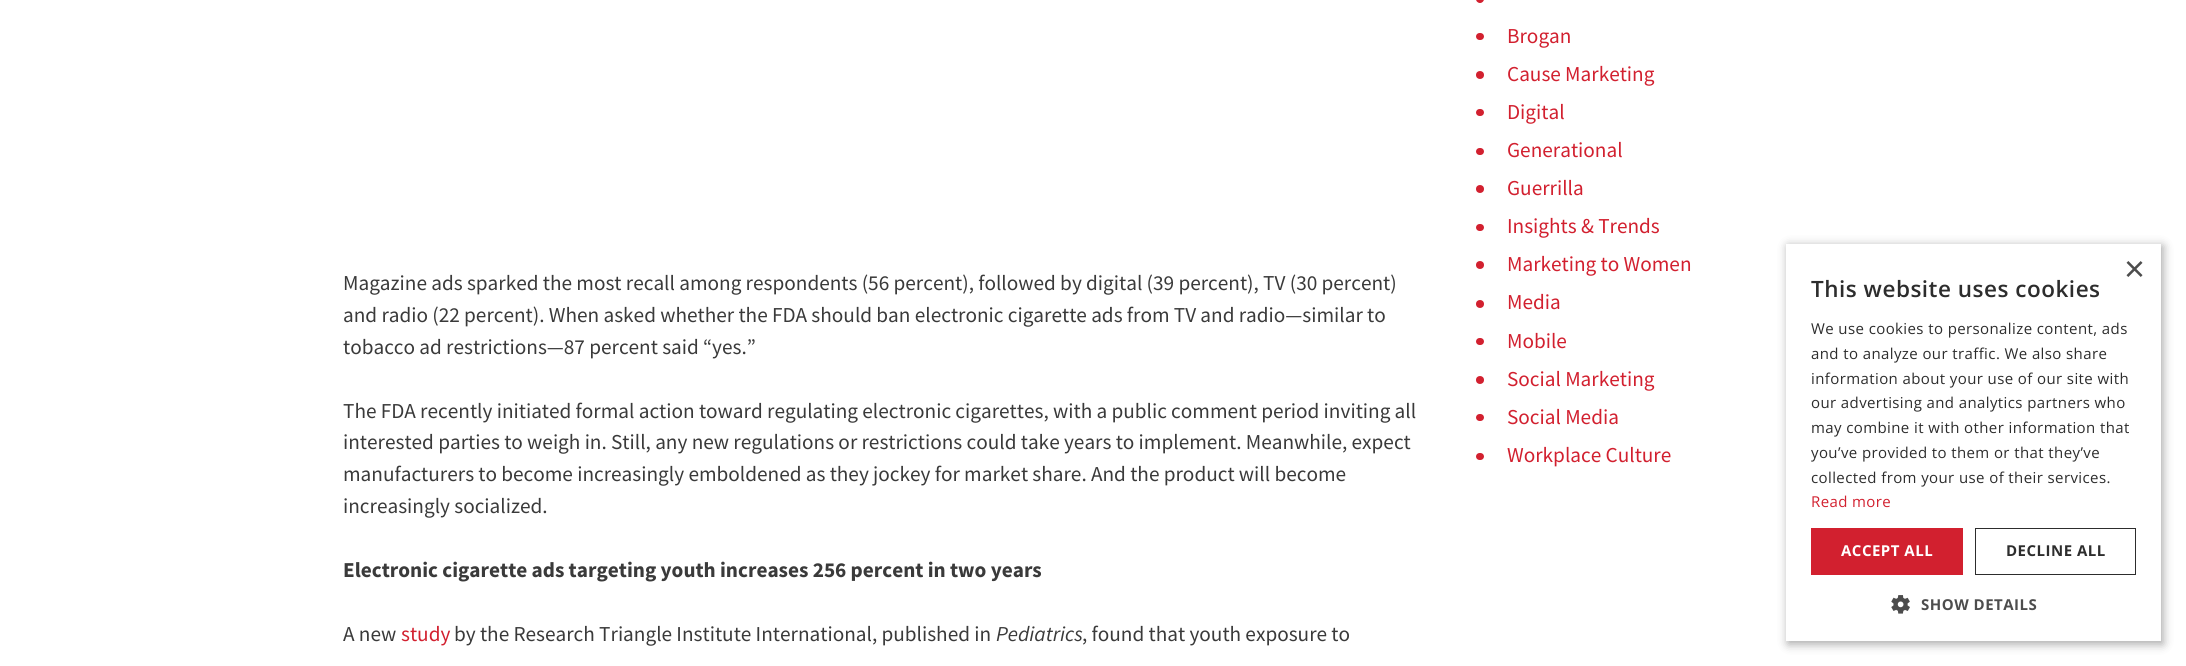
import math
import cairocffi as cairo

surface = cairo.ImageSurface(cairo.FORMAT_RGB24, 2186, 666)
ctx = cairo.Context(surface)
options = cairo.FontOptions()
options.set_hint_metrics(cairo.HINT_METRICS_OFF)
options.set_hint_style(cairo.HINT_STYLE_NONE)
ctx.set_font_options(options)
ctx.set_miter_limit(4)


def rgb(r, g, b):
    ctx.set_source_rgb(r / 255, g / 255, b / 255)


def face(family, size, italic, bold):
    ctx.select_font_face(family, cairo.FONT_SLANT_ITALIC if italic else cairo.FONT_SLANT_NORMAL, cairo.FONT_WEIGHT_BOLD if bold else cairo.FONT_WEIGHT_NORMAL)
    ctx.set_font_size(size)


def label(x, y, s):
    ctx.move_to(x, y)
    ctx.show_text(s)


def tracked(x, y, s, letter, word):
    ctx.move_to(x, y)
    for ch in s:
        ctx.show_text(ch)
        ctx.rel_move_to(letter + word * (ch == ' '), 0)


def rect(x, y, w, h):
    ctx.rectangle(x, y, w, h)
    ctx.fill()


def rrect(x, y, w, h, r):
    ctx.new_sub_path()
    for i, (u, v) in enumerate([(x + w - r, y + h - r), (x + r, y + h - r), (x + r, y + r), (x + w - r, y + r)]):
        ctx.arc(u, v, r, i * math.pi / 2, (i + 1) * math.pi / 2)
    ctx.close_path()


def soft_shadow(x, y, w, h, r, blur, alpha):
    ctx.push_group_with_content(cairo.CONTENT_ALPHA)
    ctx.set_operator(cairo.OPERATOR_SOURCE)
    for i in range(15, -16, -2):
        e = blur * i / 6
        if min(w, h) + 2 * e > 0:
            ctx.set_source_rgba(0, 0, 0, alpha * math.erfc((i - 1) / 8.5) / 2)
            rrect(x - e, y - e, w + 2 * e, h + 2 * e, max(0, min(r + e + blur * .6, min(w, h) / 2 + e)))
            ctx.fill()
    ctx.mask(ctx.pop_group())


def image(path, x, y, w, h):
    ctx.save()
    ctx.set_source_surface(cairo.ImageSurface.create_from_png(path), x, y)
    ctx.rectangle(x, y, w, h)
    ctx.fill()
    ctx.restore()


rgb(255, 255, 255)
ctx.paint()
face('Source Sans Pro', 21.25, 0, 0)
rgb(58, 58, 58)
label(343, 290, 'Magazine ads sparked the most recall among respondents (56 percent), followed by digital (39 percent), TV (30 percent)')
label(343, 322, 'and radio (22 percent). When asked whether the FDA should ban electronic cigarette ads from TV and radio—similar to')
label(343, 354, 'tobacco ad restrictions—87 percent said “yes.”')
label(343, 418, 'The FDA recently initiated formal action toward regulating electronic cigarettes, with a public comment period inviting all')
label(343, 449, 'interested parties to weigh in. Still, any new regulations or restrictions could take years to implement. Meanwhile, expect')
label(343, 481, 'manufacturers to become increasingly emboldened as they jockey for market share. And the product will become')
label(343, 513, 'increasingly socialized.')
face('Source Sans Pro', 21.25, 0, 1)
label(343, 577, 'Electronic cigarette ads targeting youth increases 256 percent in two years')
face('Source Sans Pro', 21.25, 0, 0)
label(343, 641, 'A new')
rgb(210, 32, 47)
label(401, 641, 'study')
rgb(58, 58, 58)
label(454, 641, 'by the Research Triangle Institute International, published in')
face('Source Sans Pro', 21.25, 1, 0)
label(996, 641, 'Pediatrics')
face('Source Sans Pro', 21.25, 0, 0)
label(1082, 641, ', found that youth exposure to')
rgb(210, 32, 47)
rrect(1476, -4, 8, 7, 4)
ctx.fill()
rrect(1476, 33, 8, 7, 3.5)
ctx.fill()
label(1507, 43, 'Brogan')
ctx.new_path()
ctx.arc(1480, 75, 4, 0, 2 * math.pi)
ctx.fill()
label(1507, 81, 'Cause Marketing')
rrect(1476, 109, 8, 7, 3.5)
ctx.fill()
label(1507, 119, 'Digital')
rrect(1476, 148, 8, 7, 3.5)
ctx.fill()
label(1507, 157, 'Generational')
ctx.new_path()
ctx.arc(1480, 189, 4, 0, 2 * math.pi)
ctx.fill()
label(1507, 195, 'Guerrilla')
rrect(1476, 224, 8, 7, 3.5)
ctx.fill()
label(1507, 233, 'Insights & Trends')
ctx.new_path()
ctx.arc(1480, 265, 4, 0, 2 * math.pi)
ctx.fill()
label(1507, 271, 'Marketing to Women')
ctx.new_path()
ctx.arc(1480, 304, 4, 0, 2 * math.pi)
ctx.fill()
label(1507, 309, 'Media')
rrect(1476, 338, 8, 7, 3.5)
ctx.fill()
label(1507, 348, 'Mobile')
ctx.new_path()
ctx.arc(1480, 380, 4, 0, 2 * math.pi)
ctx.fill()
label(1507, 386, 'Social Marketing')
rrect(1476, 414, 8, 7, 3.5)
ctx.fill()
label(1507, 424, 'Social Media')
rrect(1476, 453, 8, 7, 3.5)
ctx.fill()
label(1507, 462, 'Workplace Culture')
rgb(0, 0, 0)
soft_shadow(1788, 246, 375, 398, 0, 5, 0.35)
rgb(255, 255, 255)
rect(1786, 244, 375, 397)
face('Liberation Sans', 36, 0, 0)
rgb(77, 77, 77)
label(2124, 281, '×')
face('Open Sans SemiBold', 22.5, 0, 0)
rgb(45, 45, 45)
tracked(1811, 297, 'This website uses cookies', 0.5, 0)
face('Open Sans', 15, 0, 0)
tracked(1811, 334, 'We use cookies to personalize content, ads', 0.4, 0)
tracked(1811, 359, 'and to analyze our traffic. We also share', 0.4, 0)
tracked(1811, 384, 'information about your use of our site with', 0.4, 0)
tracked(1811, 408, 'our advertising and analytics partners who', 0.4, 0)
tracked(1811, 433, 'may combine it with other information that', 0.4, 0)
tracked(1811, 458, 'you’ve provided to them or that they’ve', 0.4, 0)
tracked(1811, 483, 'collected from your use of their services.', 0.4, 0)
rgb(210, 32, 47)
tracked(1811, 507, 'Read more', 0.4, 0)
rect(1811, 528, 152, 47)
face('Open Sans', 15, 0, 1)
rgb(255, 255, 255)
tracked(1841, 556, 'ACCEPT ALL', 0.5, 0)
ctx.rectangle(1975.5, 528.5, 160, 46)
rgb(45, 45, 45)
ctx.set_line_width(1)
ctx.stroke()
tracked(2006, 556, 'DECLINE ALL', 0.5, 0)
image('image0.png', 1891, 595, 19, 19)
rgb(77, 77, 77)
tracked(1921, 610, 'SHOW DETAILS', 0.5, 0)
surface.write_to_png('render.png')
